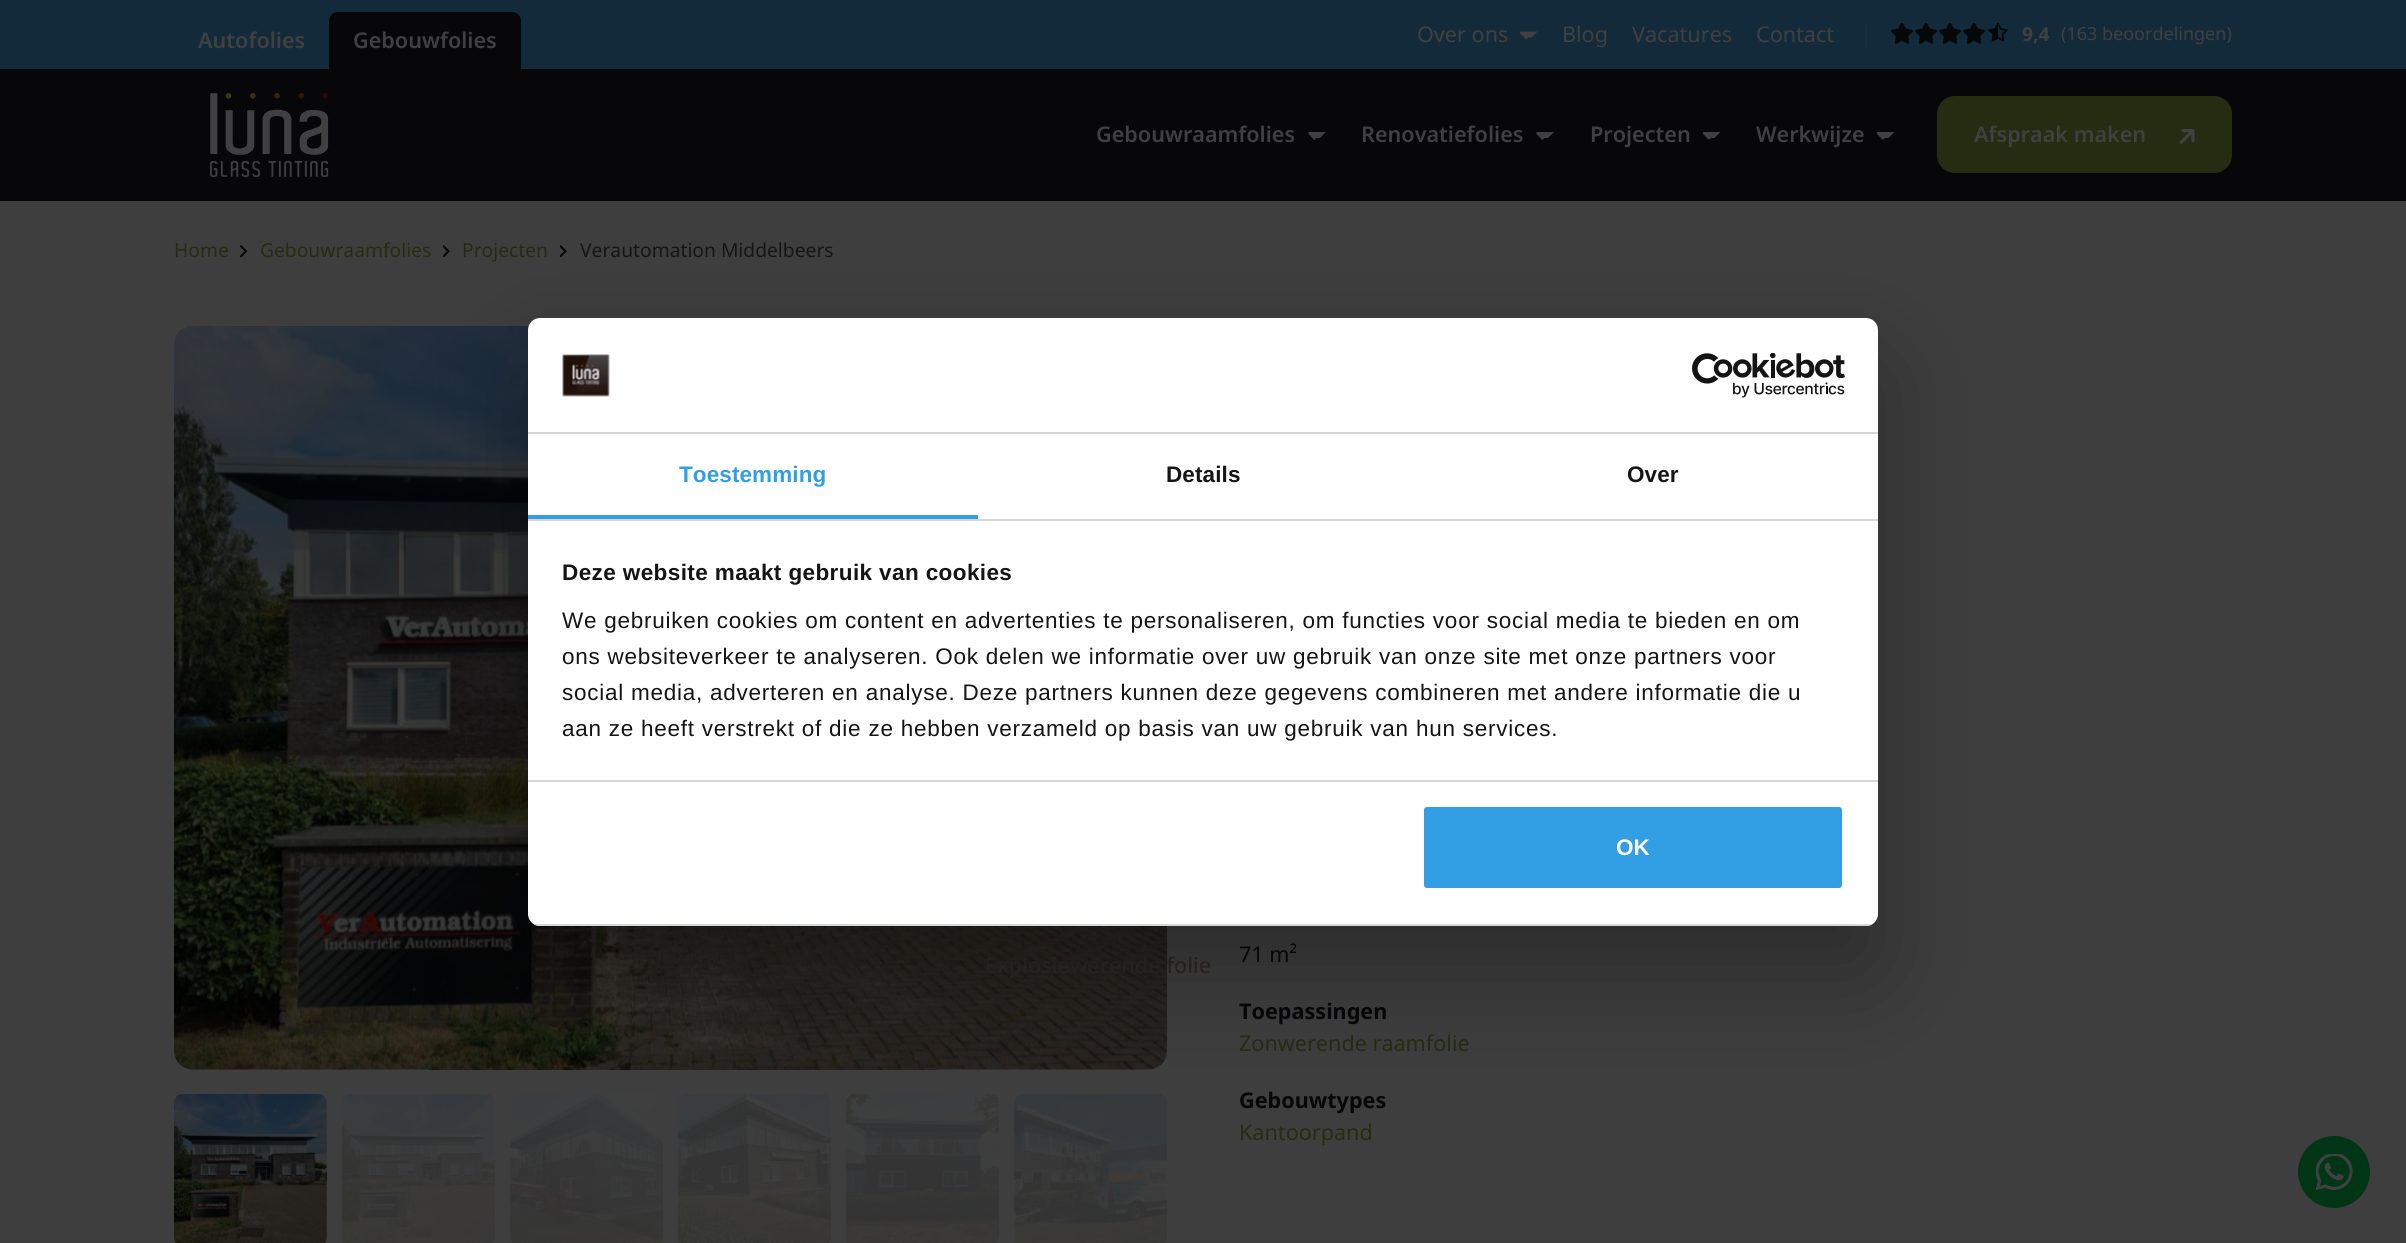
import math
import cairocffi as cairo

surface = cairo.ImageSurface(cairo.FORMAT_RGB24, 2406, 1243)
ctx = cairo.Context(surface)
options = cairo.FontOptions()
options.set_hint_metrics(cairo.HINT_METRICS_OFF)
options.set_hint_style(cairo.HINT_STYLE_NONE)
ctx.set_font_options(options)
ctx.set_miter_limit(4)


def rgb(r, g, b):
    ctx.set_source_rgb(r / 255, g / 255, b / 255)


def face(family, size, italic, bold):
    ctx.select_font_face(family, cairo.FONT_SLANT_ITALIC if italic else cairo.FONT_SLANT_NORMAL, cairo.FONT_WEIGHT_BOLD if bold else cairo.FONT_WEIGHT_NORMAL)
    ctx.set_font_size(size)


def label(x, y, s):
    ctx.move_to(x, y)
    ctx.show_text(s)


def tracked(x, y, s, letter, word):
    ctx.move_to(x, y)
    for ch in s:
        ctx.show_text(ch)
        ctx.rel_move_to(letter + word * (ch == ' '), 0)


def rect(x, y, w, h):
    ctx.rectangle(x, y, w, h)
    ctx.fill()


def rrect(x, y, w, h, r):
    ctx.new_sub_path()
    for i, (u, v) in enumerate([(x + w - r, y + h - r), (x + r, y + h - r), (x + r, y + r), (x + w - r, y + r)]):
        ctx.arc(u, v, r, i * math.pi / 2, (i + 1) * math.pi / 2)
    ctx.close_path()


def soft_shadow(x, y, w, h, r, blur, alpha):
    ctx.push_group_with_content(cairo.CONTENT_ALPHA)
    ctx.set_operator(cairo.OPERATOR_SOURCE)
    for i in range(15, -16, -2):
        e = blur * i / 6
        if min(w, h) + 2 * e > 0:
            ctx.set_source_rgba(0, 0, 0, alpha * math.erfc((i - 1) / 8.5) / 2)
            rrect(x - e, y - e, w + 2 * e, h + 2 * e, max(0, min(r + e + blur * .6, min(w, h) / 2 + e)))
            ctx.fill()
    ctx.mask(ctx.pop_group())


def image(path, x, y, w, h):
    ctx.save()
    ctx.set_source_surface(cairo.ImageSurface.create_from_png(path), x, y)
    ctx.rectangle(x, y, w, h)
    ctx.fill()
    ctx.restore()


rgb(62, 62, 62)
ctx.paint()
rgb(19, 42, 58)
rect(0, 0, 2406, 69)
face('Noto Sans SemiBold', 21.6, 0, 0)
rgb(64, 64, 64)
label(198, 48, 'Autofolies')
rgb(7, 7, 9)
ctx.new_path()
ctx.move_to(338, 12)
ctx.line_to(512, 12)
ctx.curve_to(517, 12, 521, 16, 521, 21)
ctx.line_to(521, 69)
ctx.line_to(329, 69)
ctx.line_to(329, 21)
ctx.curve_to(329, 16, 333, 12, 338, 12)
ctx.close_path()
ctx.fill()
rgb(64, 64, 64)
label(353, 48, 'Gebouwfolies')
face('Noto Sans', 21.6, 0, 0)
label(1417, 42, 'Over ons')
ctx.new_path()
ctx.move_to(1521, 33)
ctx.line_to(1526, 38)
ctx.line_to(1530.5, 33)
ctx.set_line_width(2.1)
ctx.set_line_cap(cairo.LINE_CAP_ROUND)
ctx.stroke()
ctx.new_path()
ctx.move_to(1519.5, 31.5)
ctx.line_to(1537.5, 31.5)
ctx.line_to(1531.5, 37.5)
ctx.line_to(1525.5, 37.5)
ctx.close_path()
ctx.fill()
label(1562, 42, 'Blog')
label(1632, 42, 'Vacatures')
label(1756, 42, 'Contact')
rgb(28, 46, 59)
rect(1865, 23, 2, 24)
image('image0.png', 1891, 23, 22, 21)
image('image0.png', 1915, 23, 22, 21)
image('image0.png', 1939, 23, 22, 21)
image('image0.png', 1963, 23, 22, 21)
image('image1.png', 1988, 23, 20, 19)
face('Noto Sans', 19.25, 0, 1)
rgb(64, 64, 64)
label(2022, 41, '9,4')
face('Noto Sans', 18, 0, 0)
label(2061, 40, '(163 beoordelingen)')
rgb(7, 7, 9)
rect(0, 69, 2406, 132)
image('image2.png', 210, 93, 119, 84)
face('Noto Sans SemiBold', 21.6, 0, 0)
rgb(64, 64, 64)
label(1096, 142, 'Gebouwraamfolies')
ctx.new_path()
ctx.move_to(1309.5, 133.5)
ctx.line_to(1314.5, 138.5)
ctx.line_to(1319, 133.5)
ctx.stroke()
ctx.new_path()
ctx.move_to(1308, 132)
ctx.line_to(1326, 132)
ctx.line_to(1320, 138)
ctx.line_to(1314, 138)
ctx.close_path()
ctx.fill()
image('image6.png', 174, 326, 993, 744)
face('Noto Sans Medium', 21.6, 0, 0)
rgb(43, 40, 36)
label(985, 973, 'Explosiewerende folie')
face('Noto Sans SemiBold', 21.6, 0, 0)
rgb(64, 64, 64)
label(1361, 142, 'Renovatiefolies')
ctx.new_path()
ctx.move_to(1537.5, 133.5)
ctx.line_to(1542.5, 138.5)
ctx.line_to(1547, 133.5)
ctx.stroke()
ctx.new_path()
ctx.move_to(1536, 132)
ctx.line_to(1554, 132)
ctx.line_to(1548, 138)
ctx.line_to(1542, 138)
ctx.close_path()
ctx.fill()
label(1590, 142, 'Projecten')
ctx.new_path()
ctx.move_to(1704, 133.5)
ctx.line_to(1709, 138.5)
ctx.line_to(1713.5, 133.5)
ctx.stroke()
ctx.new_path()
ctx.move_to(1702.5, 132)
ctx.line_to(1720.5, 132)
ctx.line_to(1714.5, 138)
ctx.line_to(1708.5, 138)
ctx.close_path()
ctx.fill()
label(1756, 142, 'Werkwijze')
ctx.new_path()
ctx.move_to(1878, 133.5)
ctx.line_to(1883, 138.5)
ctx.line_to(1887.5, 133.5)
ctx.stroke()
ctx.new_path()
ctx.move_to(1876.5, 132)
ctx.line_to(1894.5, 132)
ctx.line_to(1888.5, 138)
ctx.line_to(1882.5, 138)
ctx.close_path()
ctx.fill()
rgb(37, 44, 17)
rrect(1938, 97, 293, 75, 17)
ctx.fill_preserve()
ctx.set_line_width(2)
ctx.set_line_cap(cairo.LINE_CAP_BUTT)
ctx.stroke()
rgb(64, 64, 64)
label(1974, 142, 'Afspraak maken')
image('image3.png', 2179, 129, 16, 15)
face('Noto Sans', 19.25, 0, 0)
rgb(37, 44, 17)
label(174, 257, 'Home')
image('image4.png', 240, 245, 8, 13)
label(260, 257, 'Gebouwraamfolies')
image('image5.png', 443, 245, 7, 13)
label(462, 257, 'Projecten')
image('image5.png', 560, 245, 7, 13)
rgb(21, 21, 22)
label(580, 257, 'Verautomation Middelbeers')
image('image7.png', 174, 1094, 153, 149)
image('image8.png', 342, 1094, 153, 149)
image('image9.png', 510, 1094, 153, 149)
image('image10.png', 678, 1094, 153, 149)
image('image11.png', 846, 1094, 153, 149)
image('image12.png', 1014, 1094, 153, 149)
face('Noto Sans', 21.6, 0, 0)
rgb(7, 7, 9)
label(1239, 962, '71 m²')
face('Noto Sans', 21.6, 0, 1)
label(1239, 1019, 'Toepassingen')
face('Noto Sans', 21.6, 0, 0)
rgb(37, 44, 17)
label(1239, 1051, 'Zonwerende raamfolie')
face('Noto Sans', 21.6, 0, 1)
rgb(7, 7, 9)
label(1239, 1108, 'Gebouwtypes')
face('Noto Sans', 21.6, 0, 0)
rgb(37, 44, 17)
label(1239, 1140, 'Kantoorpand')
rgb(0, 0, 0)
soft_shadow(528, 366, 1350, 608, 12, 51, 0.3)
rgb(255, 255, 255)
rrect(528, 318, 1350, 608, 12)
ctx.fill()
rgb(214, 214, 214)
rect(528, 432, 1350, 2)
image('image13.png', 562, 354, 48, 43)
image('image14.png', 1692, 353, 153, 45)
rect(528, 519, 1350, 2)
rgb(50, 159, 228)
rect(528, 515, 450, 4)
face('Liberation Sans', 22.5, 0, 1)
tracked(679, 482, 'Toestemming', 0.1, 0)
rgb(21, 21, 22)
tracked(1166, 482, 'Details', 0.1, 0)
tracked(1627, 482, 'Over', 0.1, 0)
rgb(214, 214, 214)
rect(528, 780, 1350, 2)
rgb(21, 21, 22)
tracked(562, 580, 'Deze website maakt gebruik van cookies', 0.4, 0)
face('Liberation Sans', 22.5, 0, 0)
tracked(562, 628, 'We gebruiken cookies om content en advertenties te personaliseren, om functies voor social media te bieden en om', 0.75, 0)
tracked(562, 664, 'ons websiteverkeer te analyseren. Ook delen we informatie over uw gebruik van onze site met onze partners voor', 0.75, 0)
tracked(562, 700, 'social media, adverteren en analyse. Deze partners kunnen deze gegevens combineren met andere informatie die u', 0.75, 0)
tracked(562, 736, 'aan ze heeft verstrekt of die ze hebben verzameld op basis van uw gebruik van hun services.', 0.75, 0)
ctx.save()
rrect(528, 318, 1350, 608, 12)
ctx.clip()
rgb(214, 214, 214)
rect(528, 924, 1350, 2)
ctx.restore()
rgb(50, 159, 228)
rrect(1422.5, 805.5, 421, 84, 4.5)
ctx.fill_preserve()
rgb(255, 255, 255)
ctx.set_line_width(3)
ctx.stroke()
face('Liberation Sans', 22.5, 0, 1)
label(1616, 855, 'OK')
rgb(0, 54, 22)
ctx.new_path()
ctx.arc(2334, 1172, 36, 0, 2 * math.pi)
ctx.fill()
image('image15.png', 2316, 1154, 37, 36)
surface.write_to_png('render.png')
